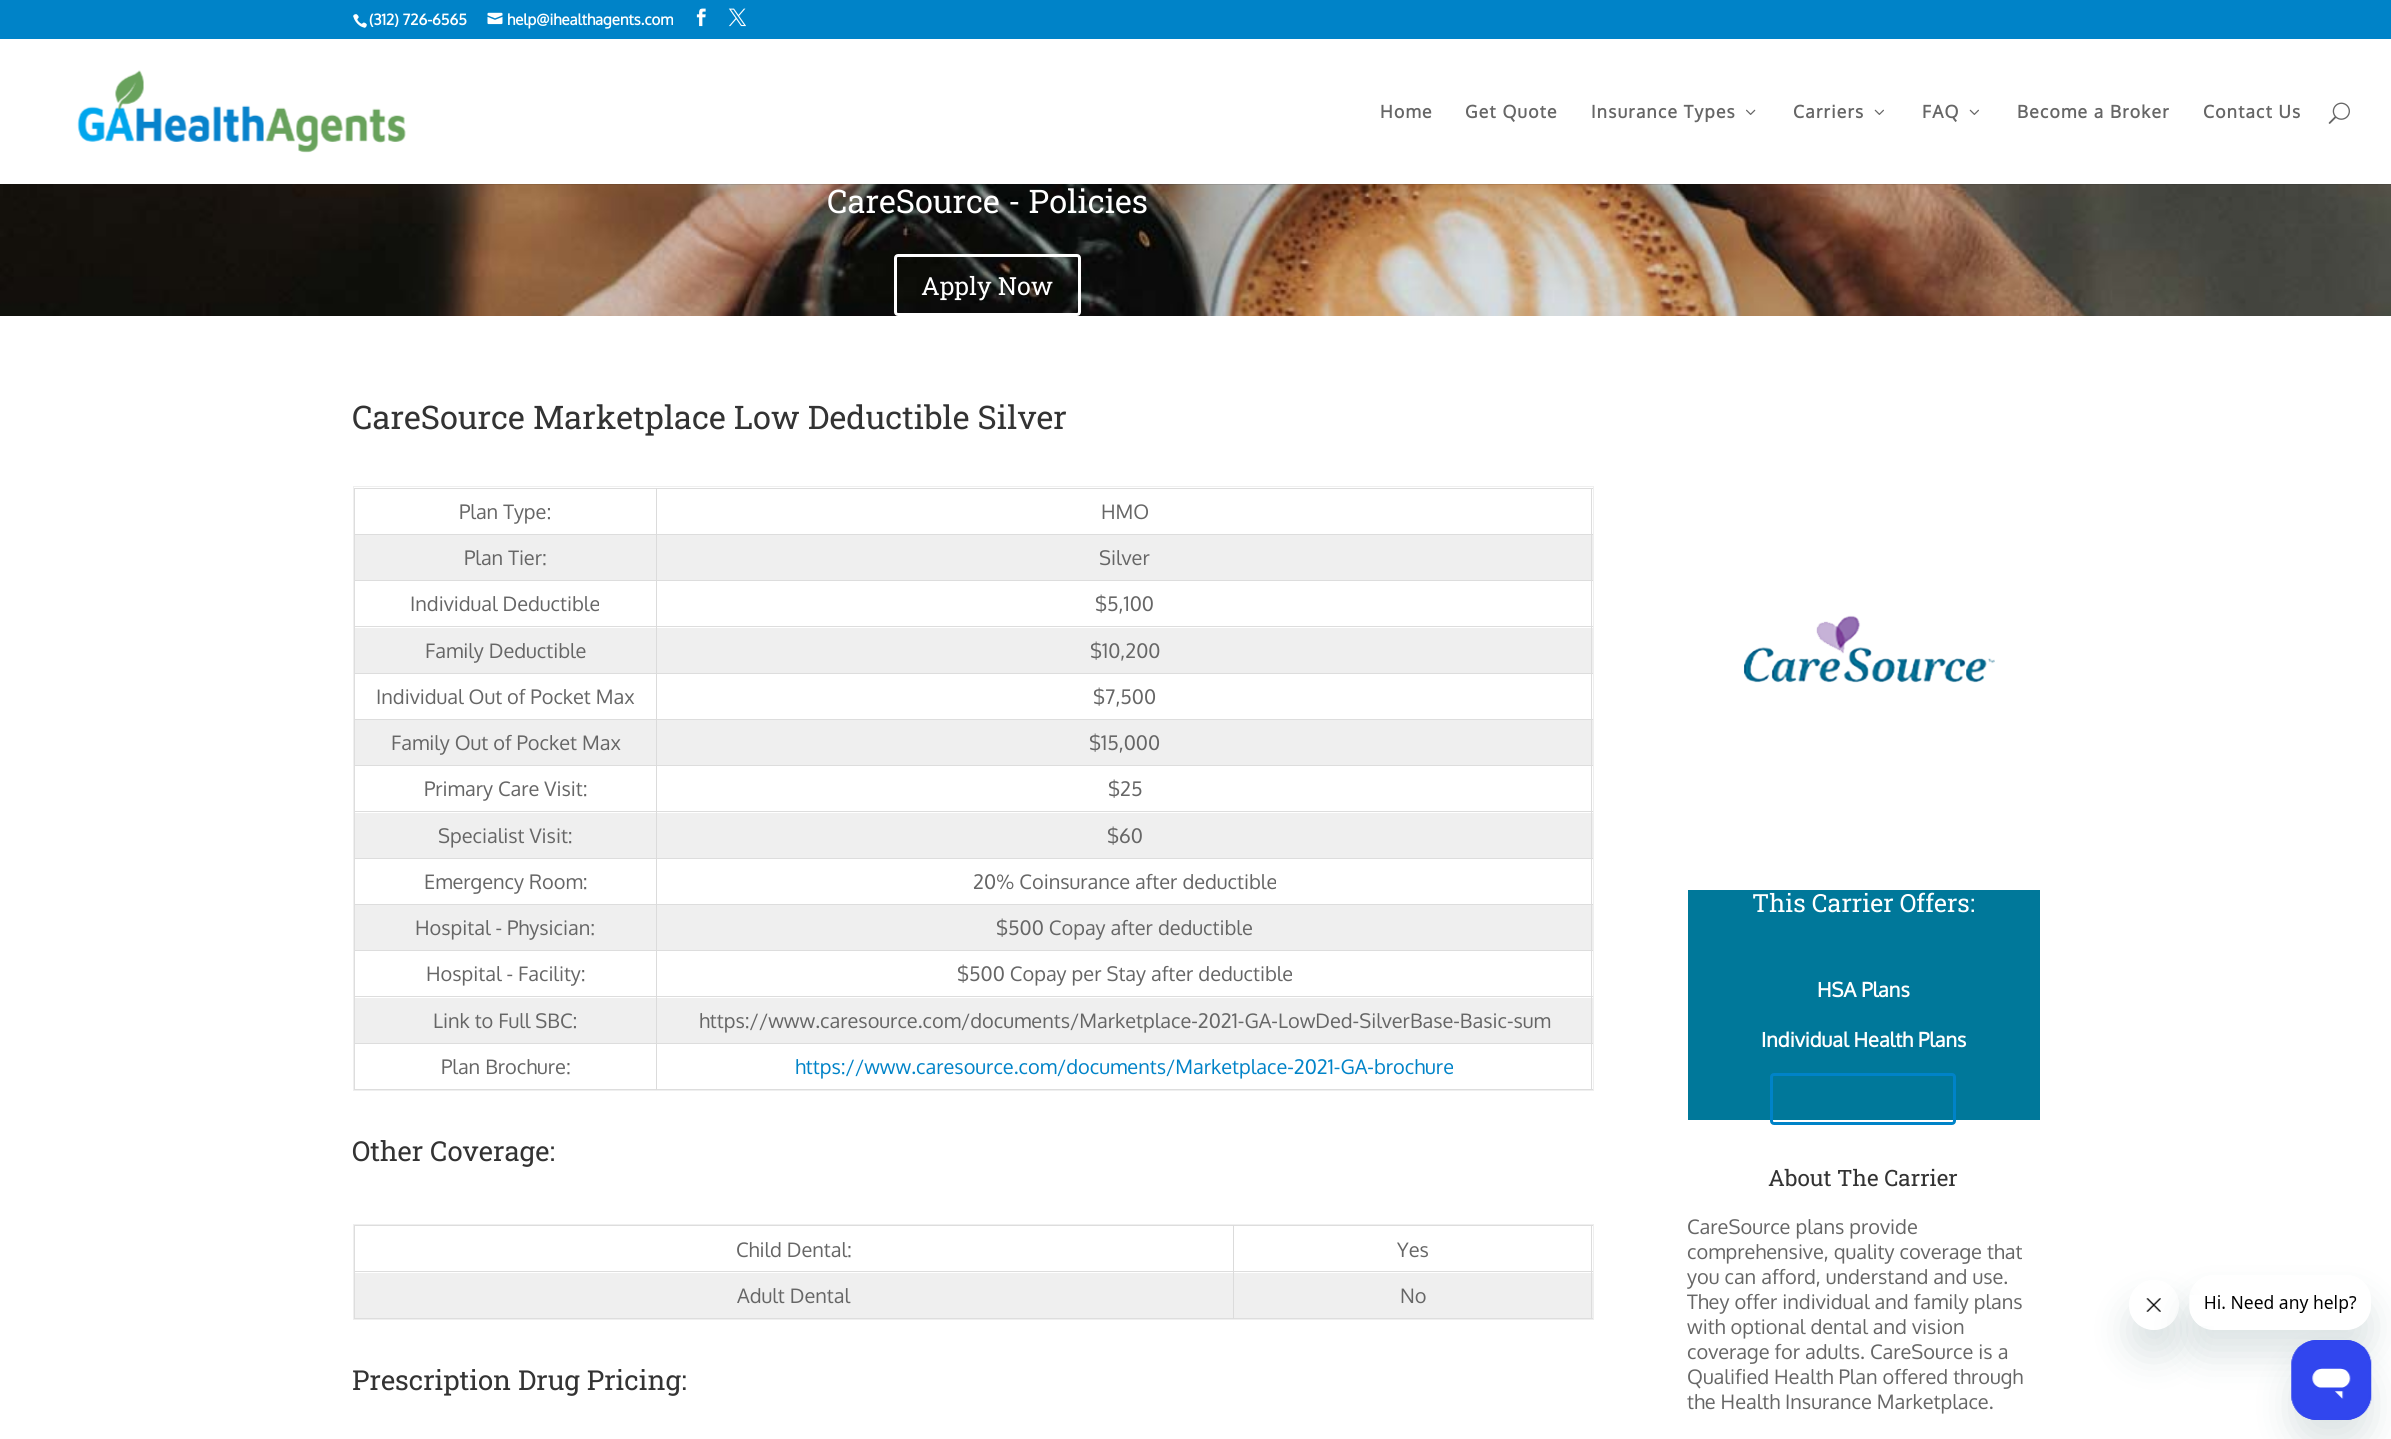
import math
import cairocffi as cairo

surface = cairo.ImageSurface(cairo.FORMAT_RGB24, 2391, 1439)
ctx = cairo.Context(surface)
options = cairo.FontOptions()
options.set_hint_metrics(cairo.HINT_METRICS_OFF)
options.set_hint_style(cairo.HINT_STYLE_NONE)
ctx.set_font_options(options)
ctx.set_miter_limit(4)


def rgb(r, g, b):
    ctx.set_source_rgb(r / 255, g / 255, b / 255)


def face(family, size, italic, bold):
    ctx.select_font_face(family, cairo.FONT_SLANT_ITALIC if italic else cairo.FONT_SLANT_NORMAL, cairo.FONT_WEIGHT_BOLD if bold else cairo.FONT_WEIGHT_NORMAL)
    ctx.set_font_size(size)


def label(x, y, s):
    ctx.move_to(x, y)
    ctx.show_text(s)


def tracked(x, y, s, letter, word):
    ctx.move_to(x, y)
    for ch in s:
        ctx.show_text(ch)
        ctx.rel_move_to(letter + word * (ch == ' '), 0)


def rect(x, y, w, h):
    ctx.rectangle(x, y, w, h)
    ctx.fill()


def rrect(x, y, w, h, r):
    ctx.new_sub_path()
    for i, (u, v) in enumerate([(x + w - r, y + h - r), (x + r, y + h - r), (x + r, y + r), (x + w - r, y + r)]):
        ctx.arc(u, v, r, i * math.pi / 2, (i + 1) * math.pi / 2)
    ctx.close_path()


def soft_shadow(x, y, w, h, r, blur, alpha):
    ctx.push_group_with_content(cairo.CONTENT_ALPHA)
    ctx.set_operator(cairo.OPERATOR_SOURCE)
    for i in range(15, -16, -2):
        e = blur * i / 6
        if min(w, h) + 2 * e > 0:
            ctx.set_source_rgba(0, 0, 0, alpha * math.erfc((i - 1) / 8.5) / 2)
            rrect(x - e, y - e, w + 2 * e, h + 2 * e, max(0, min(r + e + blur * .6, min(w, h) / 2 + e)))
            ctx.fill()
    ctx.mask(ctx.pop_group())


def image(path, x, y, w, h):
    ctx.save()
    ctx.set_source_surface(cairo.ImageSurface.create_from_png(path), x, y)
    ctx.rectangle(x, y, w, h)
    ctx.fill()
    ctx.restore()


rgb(255, 255, 255)
ctx.paint()
rgb(0, 131, 200)
rect(0, 0, 2391, 39)
image('image0.png', 353, 14, 14, 14)
face('Oxygen', 15, 0, 1)
rgb(255, 255, 255)
label(369, 25, '(312) 726-6565')
image('image1.png', 487, 12, 16, 13)
label(507, 25, 'help@ihealthagents.com')
image('image2.png', 696, 8, 10, 19)
image('image3.png', 728, 8, 18, 19)
image('image8.png', 0, 184, 2391, 132)
ctx.set_source_rgba(0, 0, 0, 0.1)
rect(253, 184, 2138, 1)
image('image4.png', 77, 70, 329, 83)
face('Oxygen', 17.5, 0, 1)
rgb(102, 102, 102)
tracked(1380, 118, 'Home', 1.25, 0)
tracked(1465, 118, 'Get Quote', 1.25, 0)
tracked(1591, 118, 'Insurance Types', 1.25, 0)
image('image5.png', 1746, 109, 10, 6)
tracked(1793, 118, 'Carriers', 1.25, 0)
image('image6.png', 1874, 109, 10, 6)
tracked(1922, 118, 'FAQ', 1.25, 0)
image('image6.png', 1969, 109, 10, 6)
tracked(2017, 118, 'Become a Broker', 1.25, 0)
tracked(2203, 118, 'Contact Us', 1.25, 0)
image('image7.png', 2328, 102, 22, 22)
face('Roboto Slab', 32.5, 0, 0)
rgb(255, 255, 255)
label(827, 213, 'CareSource - Policies')
rrect(895.5, 255.5, 184, 59, 2.5)
ctx.set_line_width(3)
ctx.stroke()
face('Roboto Slab', 25, 0, 0)
label(921, 295, 'Apply Now')
face('Roboto Slab', 32.5, 0, 0)
rgb(51, 51, 51)
label(352, 429, 'CareSource Marketplace Low Deductible Silver')
ctx.rectangle(353.5, 486.5, 1240, 604)
rgb(239, 239, 239)
ctx.set_line_width(1)
ctx.stroke()
rgb(221, 221, 221)
rect(354, 488, 1239, 1)
rect(354, 534, 1239, 1)
rgb(239, 239, 239)
rect(355, 535, 1238, 45)
rgb(221, 221, 221)
rect(354, 580, 1239, 1)
rect(354, 626, 1239, 1)
rgb(239, 239, 239)
rect(355, 628, 1238, 45)
rgb(221, 221, 221)
rect(354, 673, 1239, 1)
rect(354, 719, 1239, 1)
rgb(239, 239, 239)
rect(355, 720, 1238, 45)
rgb(221, 221, 221)
rect(354, 765, 1239, 1)
rect(354, 811, 1239, 1)
rgb(239, 239, 239)
rect(355, 813, 1238, 45)
rgb(221, 221, 221)
rect(354, 858, 1239, 1)
rect(354, 904, 1239, 1)
rgb(239, 239, 239)
rect(355, 905, 1238, 45)
rgb(221, 221, 221)
rect(354, 950, 1239, 1)
rect(354, 996, 1239, 1)
rgb(239, 239, 239)
rect(355, 998, 1238, 45)
rgb(221, 221, 221)
rect(354, 1043, 1239, 1)
rect(1591, 1043, 1, 47)
rect(1591, 996, 1, 48)
rect(1591, 950, 1, 48)
rect(1591, 904, 1, 47)
rect(1591, 858, 1, 47)
rect(1591, 811, 1, 48)
rect(1591, 765, 1, 48)
rect(1591, 719, 1, 47)
rect(1591, 673, 1, 47)
rect(1591, 626, 1, 48)
rect(1591, 580, 1, 48)
rect(1591, 534, 1, 47)
rect(1591, 488, 1, 47)
rect(354, 1089, 1239, 1)
rect(354, 1043, 1, 47)
rect(354, 996, 1, 48)
rect(354, 950, 1, 48)
rect(354, 904, 1, 47)
rect(354, 858, 1, 47)
rect(354, 811, 1, 48)
rect(354, 765, 1, 48)
rect(354, 719, 1, 47)
rect(354, 673, 1, 47)
rect(354, 626, 1, 48)
rect(354, 580, 1, 48)
rect(354, 534, 1, 47)
rect(354, 488, 1, 47)
face('Oxygen', 20, 0, 0)
rgb(102, 102, 102)
label(459, 519, 'Plan Type:')
label(1101, 519, 'HMO')
label(464, 565, 'Plan Tier:')
label(1099, 565, 'Silver')
label(410, 611, 'Individual Deductible')
label(1095, 611, '$5,100')
label(425, 658, 'Family Deductible')
label(1090, 658, '$10,200')
label(376, 704, 'Individual Out of Pocket Max')
label(1093, 704, '$7,500')
label(391, 750, 'Family Out of Pocket Max')
label(1089, 750, '$15,000')
label(424, 796, 'Primary Care Visit:')
label(1108, 796, '$25')
label(438, 843, 'Specialist Visit:')
label(1107, 843, '$60')
label(424, 889, 'Emergency Room:')
label(973, 889, '20% Coinsurance after deductible')
label(415, 935, 'Hospital - Physician:')
label(996, 935, '$500 Copay after deductible')
label(426, 981, 'Hospital - Facility:')
label(957, 981, '$500 Copay per Stay after deductible')
label(433, 1028, 'Link to Full SBC:')
label(699, 1028, 'https://www.caresource.com/documents/Marketplace-2021-GA-LowDed-SilverBase-Basic-sum')
label(441, 1074, 'Plan Brochure:')
rgb(219, 219, 219)
rect(656, 488, 1, 602)
rgb(0, 131, 200)
label(795, 1074, 'https://www.caresource.com/documents/Marketplace-2021-GA-brochure')
face('Roboto Slab', 27.5, 0, 0)
rgb(51, 51, 51)
label(352, 1161, 'Other Coverage:')
ctx.rectangle(353.5, 1224.5, 1240, 95)
rgb(239, 239, 239)
ctx.stroke()
rgb(221, 221, 221)
rect(354, 1225, 1239, 1)
rect(354, 1271, 1239, 1)
rgb(239, 239, 239)
rect(1234, 1273, 359, 45)
rgb(221, 221, 221)
rect(1591, 1271, 1, 48)
rect(1591, 1225, 1, 48)
rect(354, 1318, 1239, 1)
rect(354, 1271, 1, 48)
rect(354, 1225, 1, 48)
face('Oxygen', 20, 0, 0)
rgb(102, 102, 102)
label(736, 1257, 'Child Dental:')
label(1397, 1257, 'Yes')
rgb(239, 239, 239)
rect(355, 1273, 878, 45)
rgb(102, 102, 102)
label(737, 1303, 'Adult Dental')
rgb(219, 219, 219)
rect(1233, 1225, 1, 94)
rgb(102, 102, 102)
label(1400, 1303, 'No')
face('Roboto Slab', 27.5, 0, 0)
rgb(51, 51, 51)
label(352, 1390, 'Prescription Drug Pricing:')
image('image9.png', 1743, 615, 252, 68)
rgb(0, 120, 154)
rect(1688, 890, 352, 230)
face('Roboto Slab', 25, 0, 0)
rgb(255, 255, 255)
label(1752, 912, 'This Carrier Offers:')
face('Oxygen', 20, 0, 1)
label(1817, 997, 'HSA Plans')
label(1761, 1047, 'Individual Health Plans')
rrect(1771.5, 1074.5, 183, 49, 2.5)
rgb(0, 131, 200)
ctx.set_line_width(3)
ctx.stroke()
face('Roboto Slab', 22.5, 0, 0)
rgb(51, 51, 51)
label(1768, 1186, 'About The Carrier')
face('Oxygen', 20, 0, 0)
rgb(102, 102, 102)
label(1687, 1234, 'CareSource plans provide')
label(1687, 1259, 'comprehensive, quality coverage that')
label(1687, 1284, 'you can afford, understand and use.')
label(1687, 1309, 'They offer individual and family plans')
label(1687, 1334, 'with optional dental and vision')
label(1687, 1359, 'coverage for adults. CareSource is a')
label(1687, 1384, 'Qualified Health Plan offered through')
label(1687, 1409, 'the Health Insurance Marketplace.')
ctx.save()
ctx.set_fill_rule(cairo.FILL_RULE_EVEN_ODD)
ctx.new_path()
ctx.move_to(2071, 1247)
ctx.line_to(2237, 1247)
ctx.line_to(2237, 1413)
ctx.line_to(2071, 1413)
ctx.close_path()
ctx.move_to(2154, 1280)
ctx.curve_to(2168, 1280, 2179, 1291, 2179, 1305)
ctx.curve_to(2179, 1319, 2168, 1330, 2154, 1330)
ctx.curve_to(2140, 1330, 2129, 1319, 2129, 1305)
ctx.curve_to(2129, 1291, 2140, 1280, 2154, 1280)
ctx.close_path()
ctx.clip()
rgb(23, 73, 77)
soft_shadow(2129, 1305, 50, 50, 25, 19, 0.15)
ctx.restore()
image('image11.png', 2146, 1298, 15, 14)
ctx.save()
ctx.set_fill_rule(cairo.FILL_RULE_EVEN_ODD)
ctx.new_path()
ctx.move_to(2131, 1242)
ctx.line_to(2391, 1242)
ctx.line_to(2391, 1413)
ctx.line_to(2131, 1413)
ctx.close_path()
ctx.move_to(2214, 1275)
ctx.line_to(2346, 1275)
ctx.curve_to(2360, 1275, 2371, 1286, 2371, 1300)
ctx.line_to(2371, 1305)
ctx.curve_to(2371, 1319, 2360, 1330, 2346, 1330)
ctx.line_to(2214, 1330)
ctx.curve_to(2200, 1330, 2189, 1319, 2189, 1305)
ctx.line_to(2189, 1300)
ctx.curve_to(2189, 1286, 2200, 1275, 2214, 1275)
ctx.close_path()
ctx.clip()
rgb(23, 73, 77)
soft_shadow(2189, 1300, 182, 55, 25, 19, 0.15)
ctx.restore()
image('image10.png', 2190, 1295, 167, 31)
rgb(23, 73, 77)
soft_shadow(2291, 1365, 80, 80, 25, 19, 0.15)
image('image12.png', 2291, 1340, 81, 80)
surface.write_to_png('render.png')
